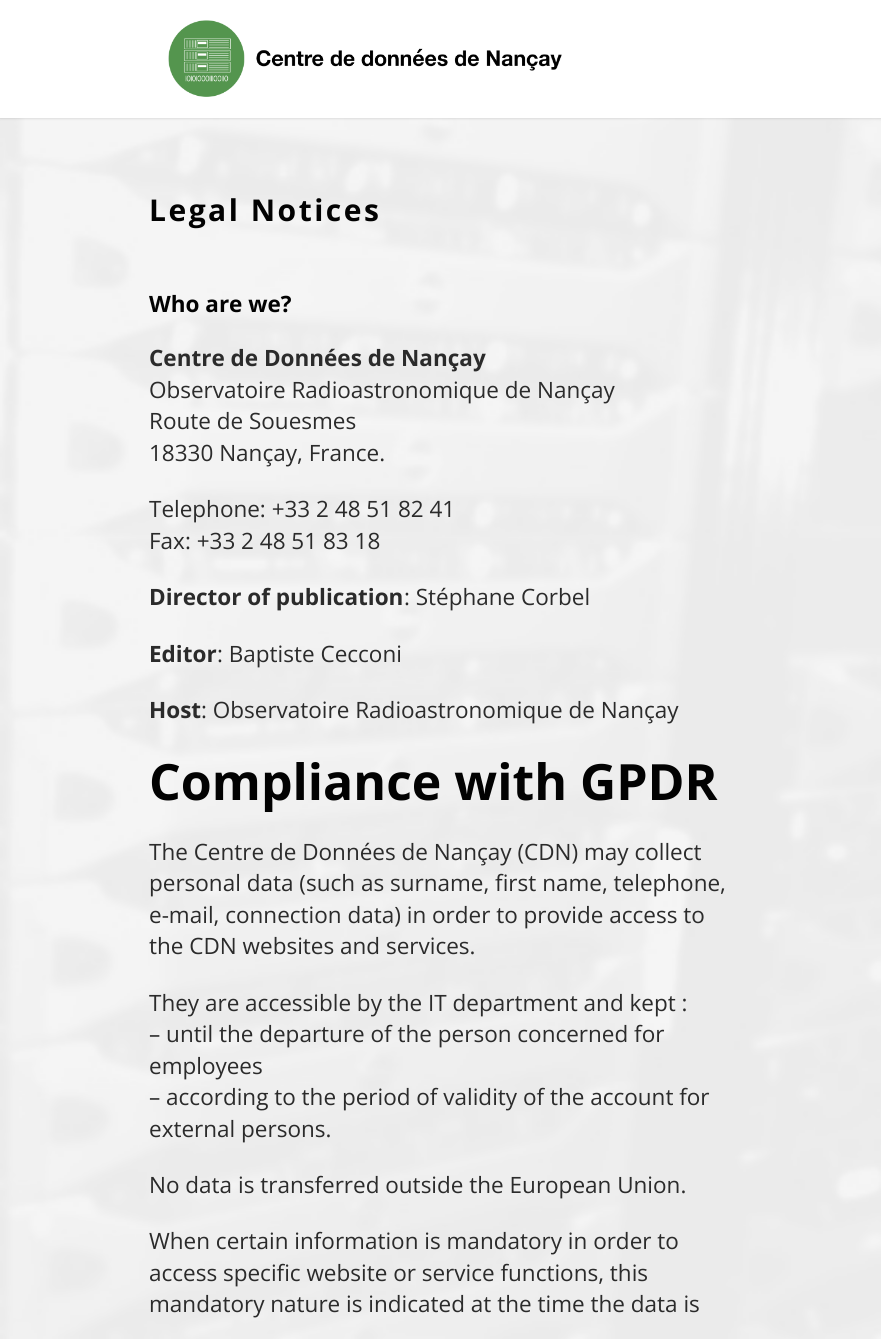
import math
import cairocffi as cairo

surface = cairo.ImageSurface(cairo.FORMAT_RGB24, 881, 1339)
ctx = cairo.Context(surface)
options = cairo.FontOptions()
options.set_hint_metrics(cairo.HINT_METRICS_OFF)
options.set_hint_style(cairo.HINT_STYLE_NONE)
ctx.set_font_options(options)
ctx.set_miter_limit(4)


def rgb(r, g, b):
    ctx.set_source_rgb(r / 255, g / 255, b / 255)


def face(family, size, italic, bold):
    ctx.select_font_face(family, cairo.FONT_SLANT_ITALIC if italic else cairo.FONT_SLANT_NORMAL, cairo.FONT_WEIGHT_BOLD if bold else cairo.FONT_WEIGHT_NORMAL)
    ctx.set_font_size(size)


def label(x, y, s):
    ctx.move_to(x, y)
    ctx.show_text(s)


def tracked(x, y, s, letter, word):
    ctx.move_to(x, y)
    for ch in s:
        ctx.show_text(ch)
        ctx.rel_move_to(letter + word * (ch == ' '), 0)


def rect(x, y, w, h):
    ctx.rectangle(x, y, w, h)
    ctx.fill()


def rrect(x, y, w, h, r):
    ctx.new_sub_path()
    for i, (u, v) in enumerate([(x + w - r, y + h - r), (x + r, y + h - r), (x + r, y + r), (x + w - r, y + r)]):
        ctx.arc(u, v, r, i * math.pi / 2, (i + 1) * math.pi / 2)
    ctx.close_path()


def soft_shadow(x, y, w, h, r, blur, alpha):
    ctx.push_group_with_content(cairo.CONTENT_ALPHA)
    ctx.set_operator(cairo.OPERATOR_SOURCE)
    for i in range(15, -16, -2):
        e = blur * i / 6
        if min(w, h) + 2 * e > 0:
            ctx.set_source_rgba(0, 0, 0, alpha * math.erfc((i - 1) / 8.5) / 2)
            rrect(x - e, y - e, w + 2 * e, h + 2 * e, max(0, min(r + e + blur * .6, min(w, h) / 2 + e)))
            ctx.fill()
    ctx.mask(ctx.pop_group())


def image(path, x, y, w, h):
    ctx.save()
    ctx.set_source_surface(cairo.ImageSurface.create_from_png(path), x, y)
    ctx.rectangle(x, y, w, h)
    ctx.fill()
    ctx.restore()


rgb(234, 234, 234)
ctx.paint()
image('image1.png', 0, 118, 881, 1221)
rgb(0, 0, 0)
soft_shadow(0, 1, 881, 118, 0, 1, 0.1)
rgb(255, 255, 255)
rect(0, 0, 881, 118)
image('image0.png', 168, 20, 394, 77)
face('Open Sans', 30, 0, 1)
rgb(2, 2, 2)
tracked(149, 221, 'Legal Notices', 2.5, 0)
face('Open Sans', 22.5, 0, 1)
label(149, 312, 'Who are we?')
rgb(43, 43, 43)
label(149, 366, 'Centre de Données de Nançay')
face('Open Sans', 22.5, 0, 0)
label(149, 398, 'Observatoire Radioastronomique de Nançay')
label(149, 429, 'Route de Souesmes')
label(149, 461, '18330 Nançay, France.')
label(149, 517, 'Telephone: +33 2 48 51 82 41')
label(149, 549, 'Fax: +33 2 48 51 83 18')
face('Open Sans', 22.5, 0, 1)
label(149, 605, 'Director of publication')
face('Open Sans', 22.5, 0, 0)
label(404, 605, ': Stéphane Corbel')
face('Open Sans', 22.5, 0, 1)
label(149, 662, 'Editor')
face('Open Sans', 22.5, 0, 0)
label(217, 662, ': Baptiste Cecconi')
face('Open Sans', 22.5, 0, 1)
label(149, 718, 'Host')
face('Open Sans', 22.5, 0, 0)
label(201, 718, ': Observatoire Radioastronomique de Nançay')
face('Open Sans', 50, 0, 1)
rgb(2, 2, 2)
label(149, 800, 'Compliance with GPDR')
face('Open Sans', 22.5, 0, 0)
rgb(43, 43, 43)
label(149, 860, 'The Centre de Données de Nançay (CDN) may collect')
label(149, 891, 'personal data (such as surname, first name, telephone,')
label(149, 923, 'e-mail, connection data) in order to provide access to')
label(149, 954, 'the CDN websites and services.')
label(149, 1011, 'They are accessible by the IT department and kept :')
label(149, 1042, '– until the departure of the person concerned for')
label(149, 1074, 'employees')
label(149, 1105, '– according to the period of validity of the account for')
label(149, 1137, 'external persons.')
label(149, 1193, 'No data is transferred outside the European Union.')
label(149, 1249, 'When certain information is mandatory in order to')
label(149, 1281, 'access specific website or service functions, this')
label(149, 1312, 'mandatory nature is indicated at the time the data is')
surface.write_to_png('render.png')
